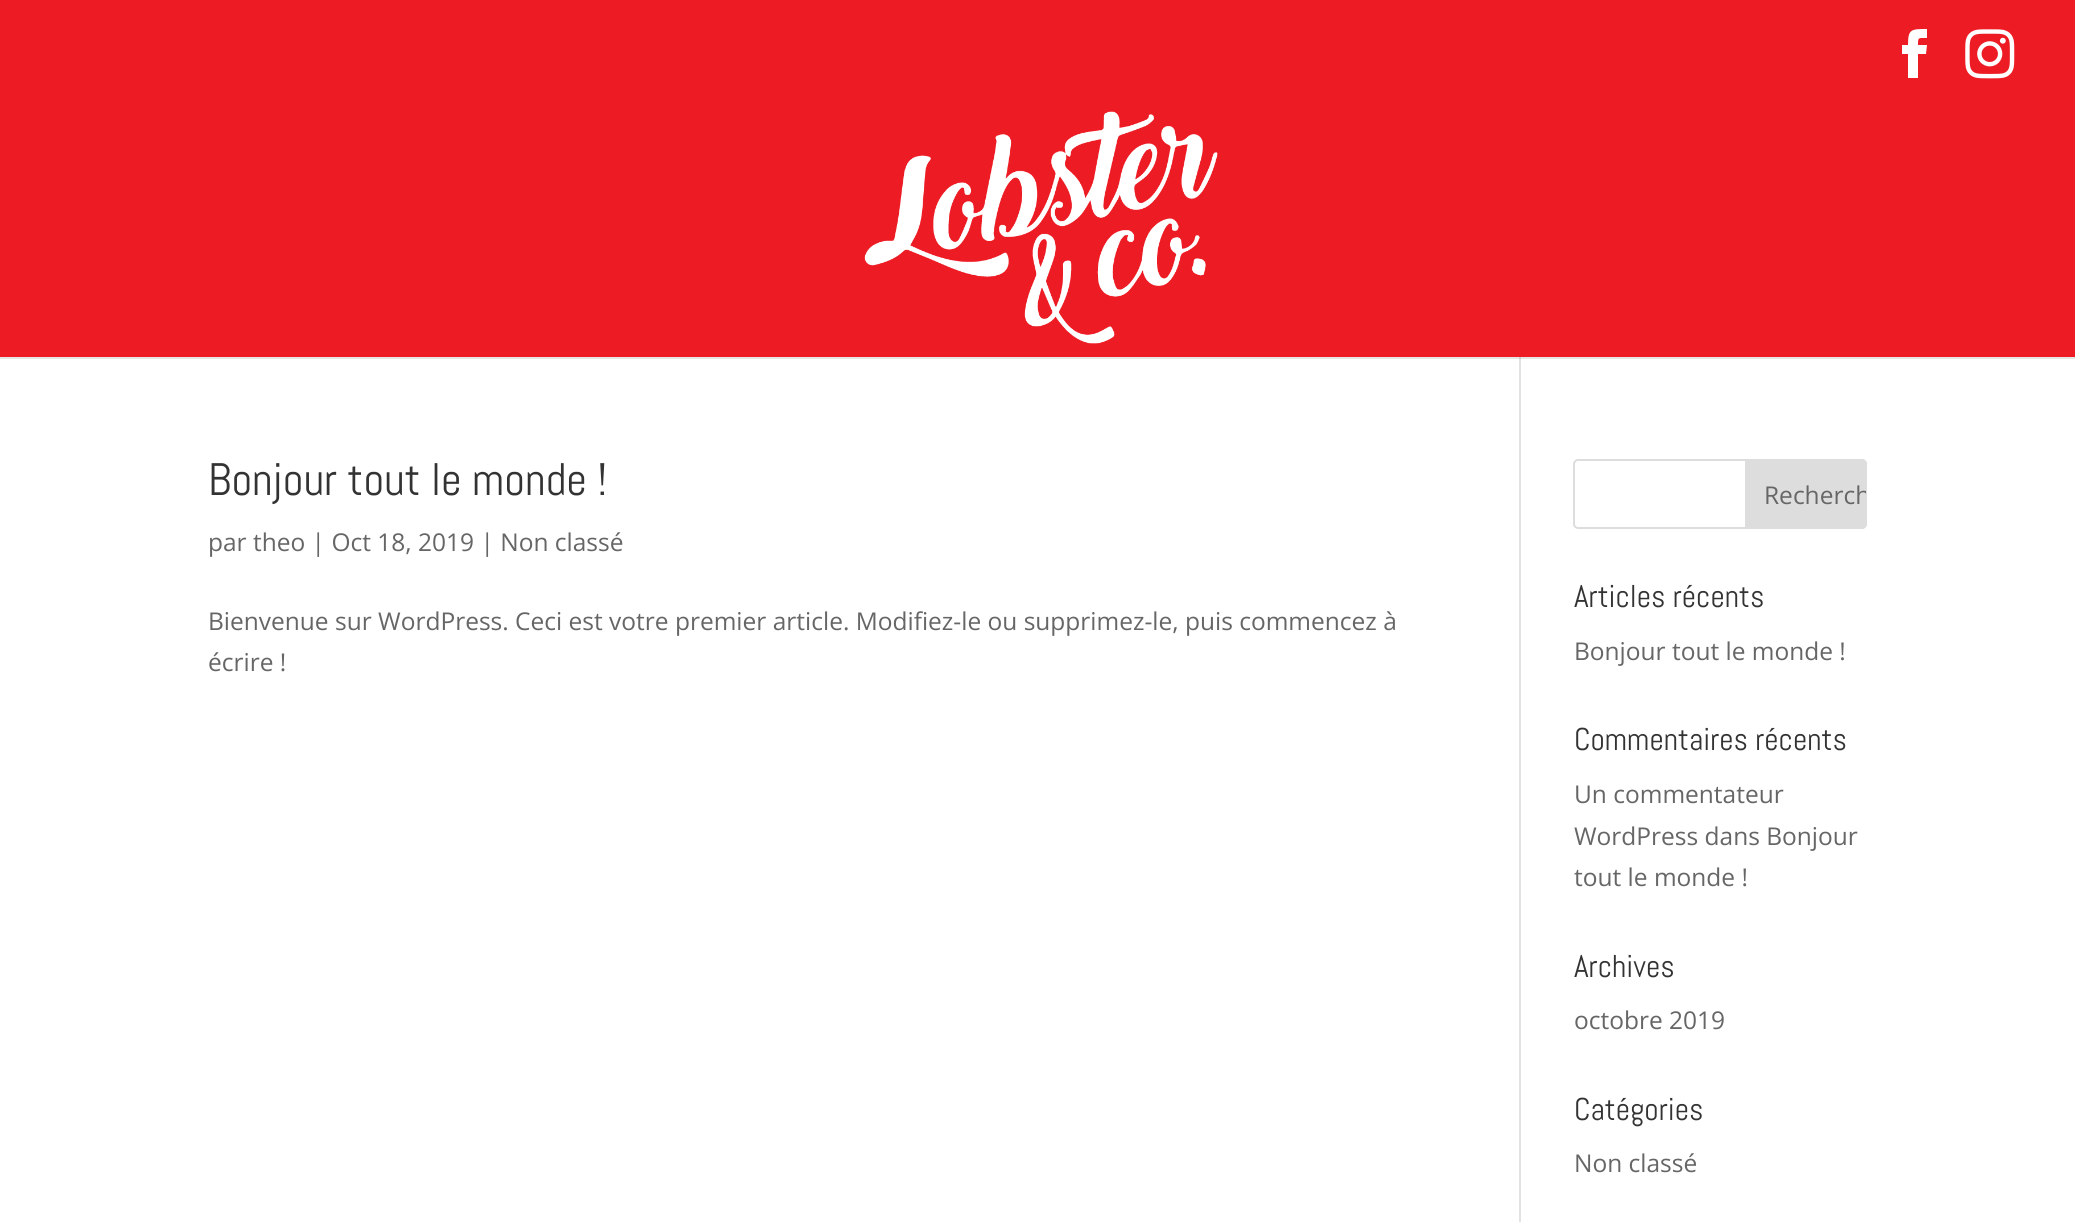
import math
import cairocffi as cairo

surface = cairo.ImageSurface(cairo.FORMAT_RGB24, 2075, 1222)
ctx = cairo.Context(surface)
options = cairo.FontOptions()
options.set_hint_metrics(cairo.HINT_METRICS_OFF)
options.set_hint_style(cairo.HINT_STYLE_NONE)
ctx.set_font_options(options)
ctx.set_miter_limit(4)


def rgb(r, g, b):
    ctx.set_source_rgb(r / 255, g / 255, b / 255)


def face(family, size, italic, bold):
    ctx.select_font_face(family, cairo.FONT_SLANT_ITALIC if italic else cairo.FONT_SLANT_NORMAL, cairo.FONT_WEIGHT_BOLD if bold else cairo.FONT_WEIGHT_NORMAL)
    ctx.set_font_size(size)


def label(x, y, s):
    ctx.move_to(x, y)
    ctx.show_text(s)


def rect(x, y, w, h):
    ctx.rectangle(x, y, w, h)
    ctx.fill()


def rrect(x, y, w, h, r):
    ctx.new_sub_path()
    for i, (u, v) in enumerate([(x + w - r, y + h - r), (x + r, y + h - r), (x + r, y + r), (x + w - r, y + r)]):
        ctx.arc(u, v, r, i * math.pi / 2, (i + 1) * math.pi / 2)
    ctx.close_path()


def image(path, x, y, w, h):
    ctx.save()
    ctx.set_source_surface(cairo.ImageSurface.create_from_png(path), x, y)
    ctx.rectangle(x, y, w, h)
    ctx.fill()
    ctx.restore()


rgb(255, 255, 255)
ctx.paint()
rgb(226, 226, 226)
rect(1519, 357, 2, 865)
ctx.set_source_rgba(0, 0, 0, 0.1)
ctx.new_path()
ctx.move_to(0, 357)
ctx.line_to(0, 359)
ctx.line_to(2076, 359)
ctx.line_to(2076, 100)
ctx.line_to(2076, 357)
ctx.close_path()
ctx.fill()
rgb(237, 28, 36)
rect(0, 0, 2075, 357)
image('image0.png', 864, 111, 354, 233)
rgb(255, 255, 255)
ctx.new_path()
ctx.move_to(1908, 78)
ctx.line_to(1918, 78)
ctx.line_to(1918, 54)
ctx.line_to(1926, 54)
ctx.line_to(1927, 45)
ctx.line_to(1918, 45)
ctx.curve_to(1918, 37, 1918, 38, 1927, 38)
ctx.line_to(1927, 29)
ctx.curve_to(1911, 29, 1908, 29, 1908, 45)
ctx.line_to(1902, 45)
ctx.line_to(1902, 54)
ctx.line_to(1908, 54)
ctx.close_path()
ctx.fill()
image('image1.png', 1965, 29, 50, 50)
face('Abel', 45.5, 0, 0)
rgb(51, 51, 51)
label(208, 495, 'Bonjour tout le monde !')
face('Open Sans', 24.5, 0, 0)
rgb(102, 102, 102)
label(208, 551, 'par theo | Oct 18, 2019 | Non classé')
label(208, 630, 'Bienvenue sur WordPress. Ceci est votre premier article. Modifiez-le ou supprimez-le, puis commencez à')
label(208, 671, 'écrire !')
rrect(1574, 460, 292, 68, 4)
rgb(221, 221, 221)
ctx.stroke()
ctx.new_path()
ctx.move_to(1746, 460)
ctx.line_to(1862, 460)
ctx.curve_to(1864, 460, 1866, 462, 1866, 464)
ctx.line_to(1866, 524)
ctx.curve_to(1866, 526, 1864, 528, 1862, 528)
ctx.line_to(1746, 528)
ctx.close_path()
ctx.fill_preserve()
ctx.stroke()
ctx.save()
ctx.new_path()
ctx.move_to(1747, 460)
ctx.line_to(1862, 460)
ctx.curve_to(1864, 460, 1866, 462, 1866, 464)
ctx.line_to(1866, 523)
ctx.curve_to(1866, 525, 1864, 527, 1862, 527)
ctx.line_to(1747, 527)
ctx.close_path()
ctx.clip()
rgb(102, 102, 102)
label(1764, 504, 'Recherch')
ctx.restore()
face('Abel', 31.5, 0, 0)
rgb(51, 51, 51)
label(1574, 607, 'Articles récents')
face('Open Sans', 24.5, 0, 0)
rgb(102, 102, 102)
label(1574, 660, 'Bonjour tout le monde !')
face('Abel', 31.5, 0, 0)
rgb(51, 51, 51)
label(1574, 750, 'Commentaires récents')
face('Open Sans', 24.5, 0, 0)
rgb(102, 102, 102)
label(1574, 803, 'Un commentateur')
label(1574, 845, 'WordPress dans Bonjour')
label(1574, 886, 'tout le monde !')
face('Abel', 31.5, 0, 0)
rgb(51, 51, 51)
label(1574, 977, 'Archives')
face('Open Sans', 24.5, 0, 0)
rgb(102, 102, 102)
label(1574, 1029, 'octobre 2019')
face('Abel', 31.5, 0, 0)
rgb(51, 51, 51)
label(1574, 1120, 'Catégories')
face('Open Sans', 24.5, 0, 0)
rgb(102, 102, 102)
label(1574, 1172, 'Non classé')
surface.write_to_png('render.png')
